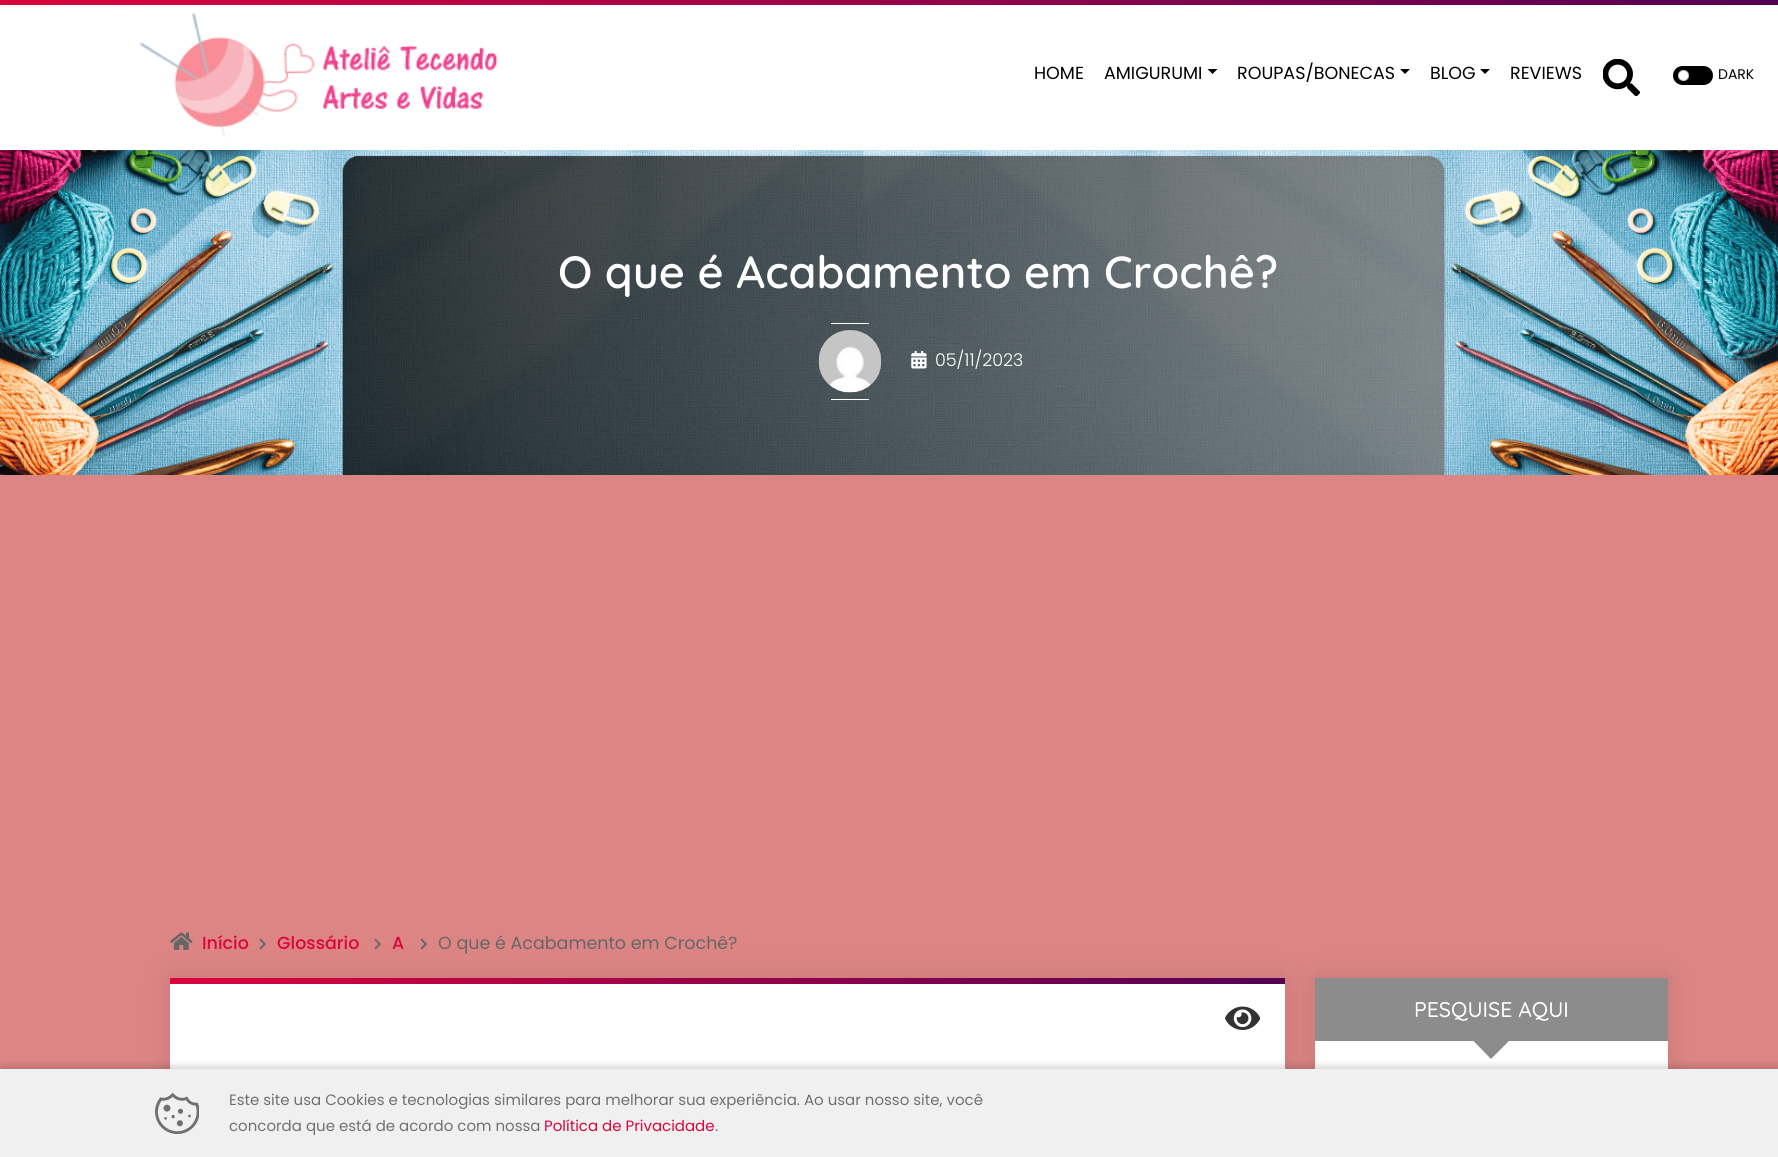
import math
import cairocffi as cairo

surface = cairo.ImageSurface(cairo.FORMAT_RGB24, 1778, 1157)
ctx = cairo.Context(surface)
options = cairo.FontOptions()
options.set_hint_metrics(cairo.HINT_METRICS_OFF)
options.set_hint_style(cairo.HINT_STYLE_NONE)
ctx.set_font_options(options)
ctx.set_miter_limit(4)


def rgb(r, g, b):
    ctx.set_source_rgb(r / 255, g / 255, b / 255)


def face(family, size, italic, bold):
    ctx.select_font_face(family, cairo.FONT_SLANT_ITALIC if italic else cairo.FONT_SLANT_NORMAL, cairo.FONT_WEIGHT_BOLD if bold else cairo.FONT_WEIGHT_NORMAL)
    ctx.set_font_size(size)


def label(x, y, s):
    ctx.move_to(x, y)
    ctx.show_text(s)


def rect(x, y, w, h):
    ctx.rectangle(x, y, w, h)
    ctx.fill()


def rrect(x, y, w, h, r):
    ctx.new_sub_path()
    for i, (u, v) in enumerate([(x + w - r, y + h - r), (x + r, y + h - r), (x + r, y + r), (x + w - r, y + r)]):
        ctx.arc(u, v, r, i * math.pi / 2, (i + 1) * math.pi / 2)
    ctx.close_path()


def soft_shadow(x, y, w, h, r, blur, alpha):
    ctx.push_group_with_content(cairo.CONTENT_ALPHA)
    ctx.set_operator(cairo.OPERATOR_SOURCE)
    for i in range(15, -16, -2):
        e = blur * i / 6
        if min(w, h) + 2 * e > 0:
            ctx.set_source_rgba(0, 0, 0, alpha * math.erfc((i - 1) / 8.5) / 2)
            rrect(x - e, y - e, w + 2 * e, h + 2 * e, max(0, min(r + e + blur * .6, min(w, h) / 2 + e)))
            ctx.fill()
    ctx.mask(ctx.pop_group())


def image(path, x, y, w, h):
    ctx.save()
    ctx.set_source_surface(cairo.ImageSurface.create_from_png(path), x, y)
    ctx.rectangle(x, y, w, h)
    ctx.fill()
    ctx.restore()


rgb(221, 133, 133)
ctx.paint()
rgb(255, 255, 255)
rect(0, 5, 1778, 145)
gradient = cairo.LinearGradient(0, 2.5, 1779, 2.5)
gradient.add_color_stop_rgba(0, 0.859, 0.016, 0.239, 1)
gradient.add_color_stop_rgba(1, 0.329, 0.004, 0.329, 1)
ctx.set_source(gradient)
rect(0, 0, 1778, 5)
image('image0.png', 140, 12, 358, 126)
face('Poppins', 17.5, 0, 0)
rgb(0, 0, 0)
label(1034, 79, 'HOME')
label(1104, 79, 'AMIGURUMI')
ctx.new_path()
ctx.move_to(1207.5, 69)
ctx.line_to(1217.5, 69)
ctx.line_to(1212.5, 74)
ctx.close_path()
ctx.fill()
label(1237, 79, 'ROUPAS/BONECAS')
ctx.new_path()
ctx.move_to(1400, 69)
ctx.line_to(1410, 69)
ctx.line_to(1405, 74)
ctx.close_path()
ctx.fill()
label(1430, 79, 'BLOG')
ctx.new_path()
ctx.move_to(1480, 69)
ctx.line_to(1490, 69)
ctx.line_to(1485, 74)
ctx.close_path()
ctx.fill()
label(1510, 79, 'REVIEWS')
image('image1.png', 1603, 59, 37, 37)
rrect(1673, 66, 40, 19, 9.5)
ctx.fill()
rgb(255, 255, 255)
ctx.arc(1683.5, 75.5, 5, 0, 2 * math.pi)
ctx.fill_preserve()
rgb(200, 195, 188)
ctx.set_line_width(1)
ctx.stroke()
face('Poppins', 14, 0, 0)
rgb(0, 0, 0)
label(1718, 79, 'DARK')
image('image2.png', 0, 150, 1778, 325)
face('Quicksand SemiBold', 45, 0, 0)
rgb(255, 255, 255)
label(558, 288, 'O que é Acabamento em Crochê?')
rect(831, 323, 38, 1)
image('image3.png', 818, 330, 64, 63)
image('image4.png', 911, 350, 16, 19)
face('Poppins Light', 17.5, 0, 0)
label(935, 366, '05/11/2023')
rect(831, 399, 38, 1)
image('image5.png', 170, 932, 23, 18)
face('Poppins Medium', 17.5, 0, 0)
rgb(219, 4, 61)
label(202, 949, 'Início')
image('image6.png', 259, 938, 7, 12)
label(277, 949, 'Glossário')
image('image6.png', 374, 938, 7, 12)
label(392, 949, 'A')
image('image7.png', 420, 938, 7, 12)
face('Poppins', 17.5, 0, 0)
rgb(102, 102, 102)
label(438, 949, 'O que é Acabamento em Crochê?')
rgb(0, 0, 0)
soft_shadow(1315, 978, 353, 171, 0, 15.5, 0.1)
rgb(255, 255, 255)
rect(1315, 1041, 353, 28)
rgb(0, 0, 0)
soft_shadow(170, 978, 1115, 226, 0, 15.5, 0.1)
rgb(255, 255, 255)
rect(170, 984, 1115, 85)
gradient = cairo.LinearGradient(170, 981, 1285, 981)
gradient.add_color_stop_rgba(0, 0.859, 0.016, 0.239, 1)
gradient.add_color_stop_rgba(1, 0.329, 0.004, 0.329, 1)
ctx.set_source(gradient)
rect(170, 978, 1115, 6)
image('image8.png', 1225, 1006, 36, 24)
rgb(140, 140, 140)
rect(1315, 978, 353, 63)
face('Quicksand Medium', 21.25, 0, 0)
rgb(255, 255, 255)
label(1414, 1017, 'PESQUISE AQUI')
rgb(140, 140, 140)
ctx.new_path()
ctx.move_to(1472.5, 1040)
ctx.line_to(1510, 1040)
ctx.line_to(1491, 1059)
ctx.close_path()
ctx.fill()
rgb(0, 0, 0)
soft_shadow(0, 1065, 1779, 89, 0, 3, 0.14)
rgb(240, 240, 240)
rect(0, 1069, 1778, 88)
image('image9.png', 155, 1093, 44, 41)
face('Poppins', 15, 0, 0)
rgb(112, 112, 112)
label(229, 1105, 'Este site usa Cookies e tecnologias similares para melhorar sua experiência. Ao usar nosso site, você')
label(229, 1131, 'concorda que está de acordo com nossa')
rgb(219, 4, 61)
label(544, 1131, 'Política de Privacidade')
rgb(112, 112, 112)
label(715, 1131, '.')
surface.write_to_png('render.png')
